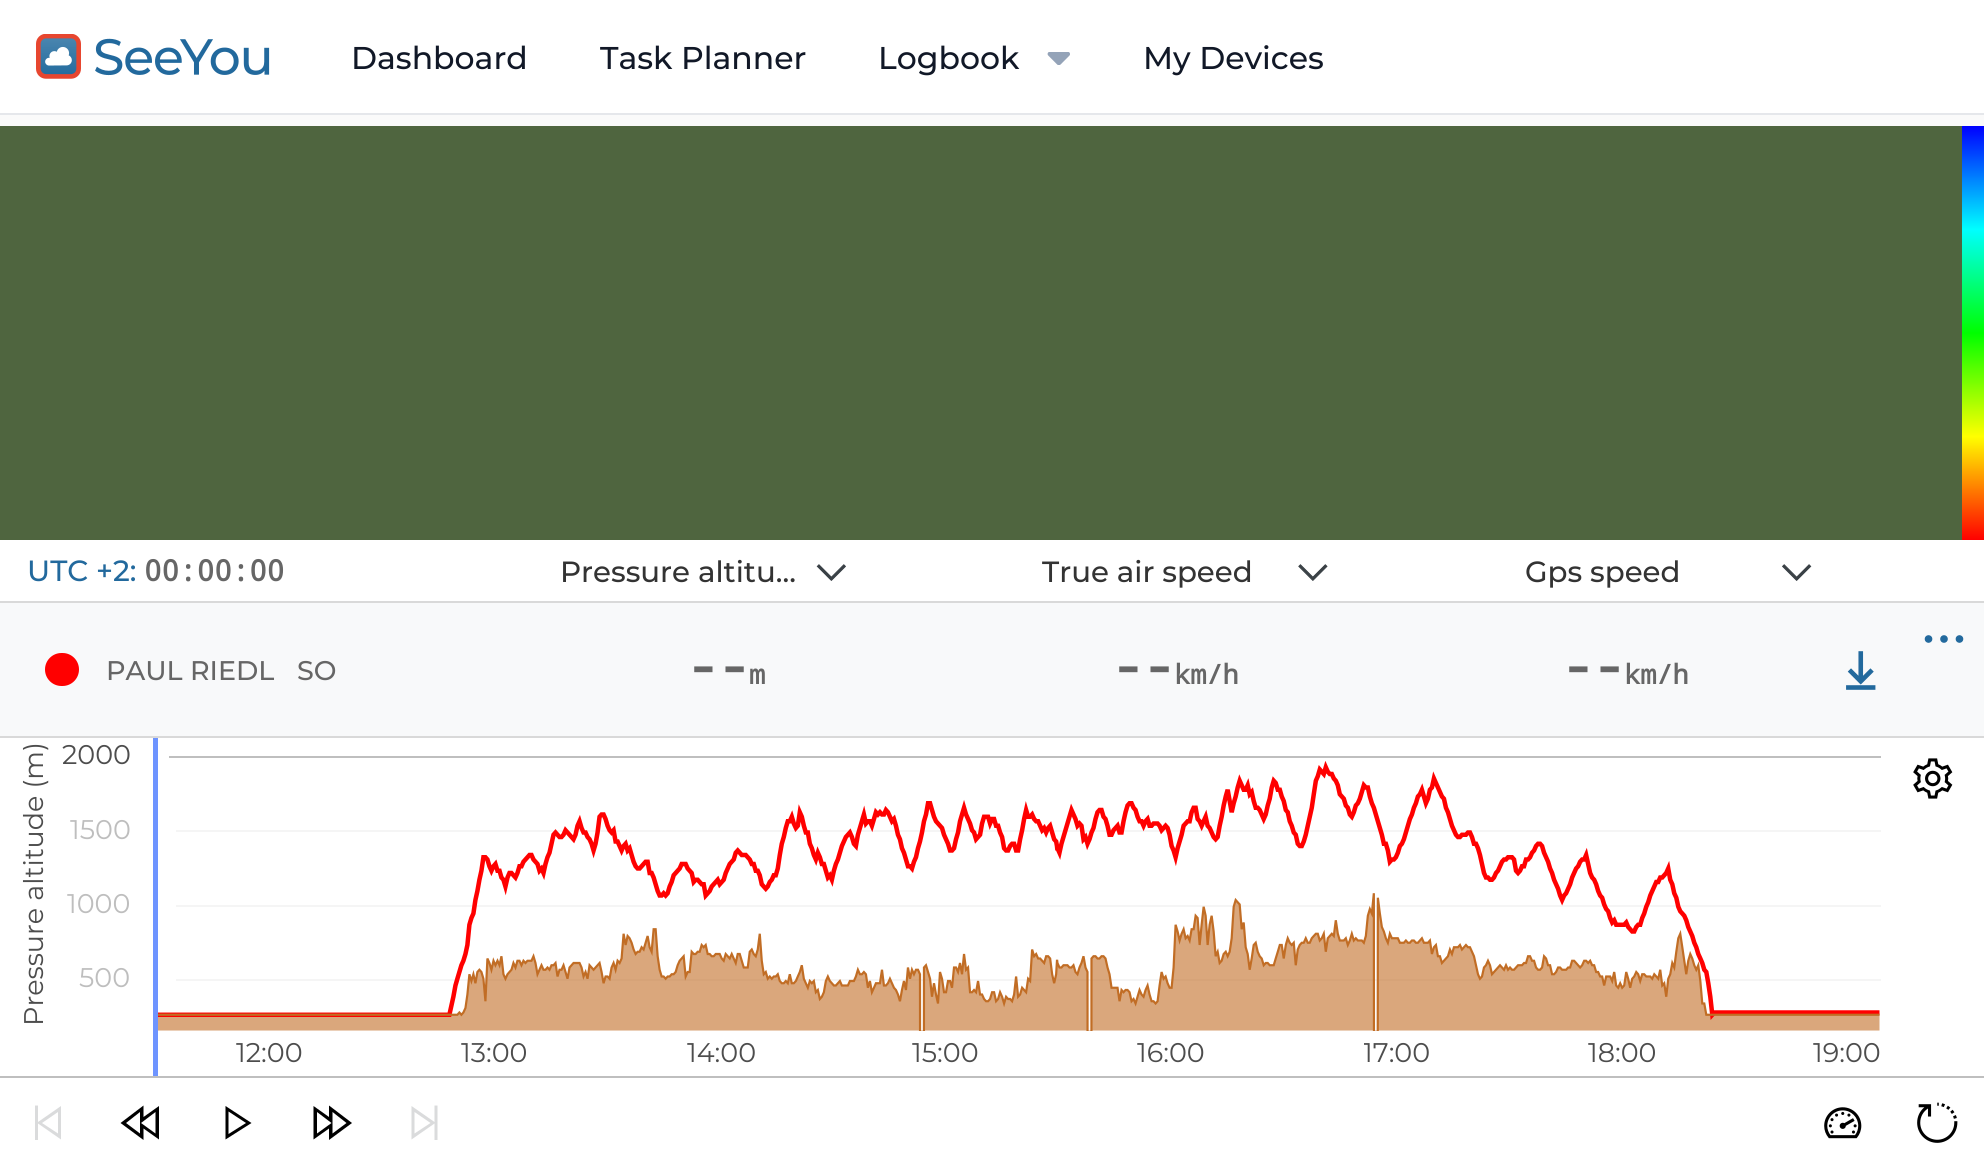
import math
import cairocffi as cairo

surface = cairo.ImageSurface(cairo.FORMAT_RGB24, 1984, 1166)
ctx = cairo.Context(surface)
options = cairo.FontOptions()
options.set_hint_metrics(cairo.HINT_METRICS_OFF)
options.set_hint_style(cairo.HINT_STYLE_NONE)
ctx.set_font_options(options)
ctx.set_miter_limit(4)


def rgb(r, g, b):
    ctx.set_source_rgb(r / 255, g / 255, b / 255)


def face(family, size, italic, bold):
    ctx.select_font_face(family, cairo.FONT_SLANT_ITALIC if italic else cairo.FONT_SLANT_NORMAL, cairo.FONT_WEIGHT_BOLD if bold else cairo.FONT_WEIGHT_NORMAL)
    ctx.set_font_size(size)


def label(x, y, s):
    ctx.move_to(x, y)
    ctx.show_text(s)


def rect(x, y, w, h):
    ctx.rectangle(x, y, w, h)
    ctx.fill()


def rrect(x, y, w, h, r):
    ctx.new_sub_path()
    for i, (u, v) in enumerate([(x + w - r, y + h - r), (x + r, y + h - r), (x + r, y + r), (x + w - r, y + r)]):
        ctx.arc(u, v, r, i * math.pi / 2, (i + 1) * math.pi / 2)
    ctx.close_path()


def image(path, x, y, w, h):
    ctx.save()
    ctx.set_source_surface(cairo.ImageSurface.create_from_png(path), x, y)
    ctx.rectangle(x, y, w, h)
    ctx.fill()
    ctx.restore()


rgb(250, 250, 250)
ctx.paint()
rgb(255, 255, 255)
rect(0, 0, 1984, 113)
rgb(229, 231, 235)
rect(0, 113, 1984, 2)
image('image0.png', 36, 34, 234, 45)
face('Montserrat Medium', 31.5, 0, 0)
rgb(17, 24, 39)
label(351, 69, 'Dashboard')
label(600, 69, 'Task Planner')
label(878, 69, 'Logbook')
image('image1.png', 1047, 52, 23, 13)
label(1143, 69, 'My Devices')
rgb(79, 101, 63)
rect(0, 126, 1962, 414)
gradient = cairo.LinearGradient(1973, 540, 1973, 126)
gradient.add_color_stop_rgba(0, 1, 0, 0, 1)
gradient.add_color_stop_rgba(0.01, 1, 0.039, 0, 1)
gradient.add_color_stop_rgba(0.02, 1, 0.078, 0, 1)
gradient.add_color_stop_rgba(0.03, 1, 0.122, 0, 1)
gradient.add_color_stop_rgba(0.04, 1, 0.161, 0, 1)
gradient.add_color_stop_rgba(0.05, 1, 0.2, 0, 1)
gradient.add_color_stop_rgba(0.06, 1, 0.239, 0, 1)
gradient.add_color_stop_rgba(0.07, 1, 0.278, 0, 1)
gradient.add_color_stop_rgba(0.08, 1, 0.322, 0, 1)
gradient.add_color_stop_rgba(0.09, 1, 0.361, 0, 1)
gradient.add_color_stop_rgba(0.1, 1, 0.4, 0, 1)
gradient.add_color_stop_rgba(0.11, 1, 0.439, 0, 1)
gradient.add_color_stop_rgba(0.12, 1, 0.478, 0, 1)
gradient.add_color_stop_rgba(0.13, 1, 0.522, 0, 1)
gradient.add_color_stop_rgba(0.14, 1, 0.561, 0, 1)
gradient.add_color_stop_rgba(0.15, 1, 0.6, 0, 1)
gradient.add_color_stop_rgba(0.16, 1, 0.639, 0, 1)
gradient.add_color_stop_rgba(0.17, 1, 0.678, 0, 1)
gradient.add_color_stop_rgba(0.18, 1, 0.722, 0, 1)
gradient.add_color_stop_rgba(0.19, 1, 0.761, 0, 1)
gradient.add_color_stop_rgba(0.2, 1, 0.8, 0, 1)
gradient.add_color_stop_rgba(0.21, 1, 0.839, 0, 1)
gradient.add_color_stop_rgba(0.22, 1, 0.878, 0, 1)
gradient.add_color_stop_rgba(0.23, 1, 0.922, 0, 1)
gradient.add_color_stop_rgba(0.24, 1, 0.961, 0, 1)
gradient.add_color_stop_rgba(0.25, 1, 1, 0, 1)
gradient.add_color_stop_rgba(0.26, 0.961, 1, 0, 1)
gradient.add_color_stop_rgba(0.27, 0.922, 1, 0, 1)
gradient.add_color_stop_rgba(0.28, 0.878, 1, 0, 1)
gradient.add_color_stop_rgba(0.29, 0.839, 1, 0, 1)
gradient.add_color_stop_rgba(0.3, 0.8, 1, 0, 1)
gradient.add_color_stop_rgba(0.31, 0.761, 1, 0, 1)
gradient.add_color_stop_rgba(0.32, 0.722, 1, 0, 1)
gradient.add_color_stop_rgba(0.33, 0.678, 1, 0, 1)
gradient.add_color_stop_rgba(0.34, 0.639, 1, 0, 1)
gradient.add_color_stop_rgba(0.35, 0.6, 1, 0, 1)
gradient.add_color_stop_rgba(0.36, 0.561, 1, 0, 1)
gradient.add_color_stop_rgba(0.37, 0.522, 1, 0, 1)
gradient.add_color_stop_rgba(0.38, 0.478, 1, 0, 1)
gradient.add_color_stop_rgba(0.39, 0.439, 1, 0, 1)
gradient.add_color_stop_rgba(0.4, 0.4, 1, 0, 1)
gradient.add_color_stop_rgba(0.41, 0.361, 1, 0, 1)
gradient.add_color_stop_rgba(0.42, 0.322, 1, 0, 1)
gradient.add_color_stop_rgba(0.43, 0.278, 1, 0, 1)
gradient.add_color_stop_rgba(0.44, 0.239, 1, 0, 1)
gradient.add_color_stop_rgba(0.45, 0.2, 1, 0, 1)
gradient.add_color_stop_rgba(0.46, 0.161, 1, 0, 1)
gradient.add_color_stop_rgba(0.47, 0.122, 1, 0, 1)
gradient.add_color_stop_rgba(0.48, 0.078, 1, 0, 1)
gradient.add_color_stop_rgba(0.49, 0.039, 1, 0, 1)
gradient.add_color_stop_rgba(0.5, 0, 1, 0, 1)
gradient.add_color_stop_rgba(0.51, 0, 1, 0.039, 1)
gradient.add_color_stop_rgba(0.52, 0, 1, 0.078, 1)
gradient.add_color_stop_rgba(0.53, 0, 1, 0.122, 1)
gradient.add_color_stop_rgba(0.54, 0, 1, 0.161, 1)
gradient.add_color_stop_rgba(0.55, 0, 1, 0.2, 1)
gradient.add_color_stop_rgba(0.56, 0, 1, 0.239, 1)
gradient.add_color_stop_rgba(0.57, 0, 1, 0.278, 1)
gradient.add_color_stop_rgba(0.58, 0, 1, 0.322, 1)
gradient.add_color_stop_rgba(0.59, 0, 1, 0.361, 1)
gradient.add_color_stop_rgba(0.6, 0, 1, 0.4, 1)
gradient.add_color_stop_rgba(0.61, 0, 1, 0.439, 1)
gradient.add_color_stop_rgba(0.62, 0, 1, 0.478, 1)
gradient.add_color_stop_rgba(0.63, 0, 1, 0.522, 1)
gradient.add_color_stop_rgba(0.64, 0, 1, 0.561, 1)
gradient.add_color_stop_rgba(0.65, 0, 1, 0.6, 1)
gradient.add_color_stop_rgba(0.66, 0, 1, 0.639, 1)
gradient.add_color_stop_rgba(0.67, 0, 1, 0.678, 1)
gradient.add_color_stop_rgba(0.68, 0, 1, 0.722, 1)
gradient.add_color_stop_rgba(0.69, 0, 1, 0.761, 1)
gradient.add_color_stop_rgba(0.7, 0, 1, 0.8, 1)
gradient.add_color_stop_rgba(0.71, 0, 1, 0.839, 1)
gradient.add_color_stop_rgba(0.72, 0, 1, 0.878, 1)
gradient.add_color_stop_rgba(0.73, 0, 1, 0.922, 1)
gradient.add_color_stop_rgba(0.74, 0, 1, 0.961, 1)
gradient.add_color_stop_rgba(0.75, 0, 1, 1, 1)
gradient.add_color_stop_rgba(0.76, 0, 0.961, 1, 1)
gradient.add_color_stop_rgba(0.77, 0, 0.922, 1, 1)
gradient.add_color_stop_rgba(0.78, 0, 0.878, 1, 1)
gradient.add_color_stop_rgba(0.79, 0, 0.839, 1, 1)
gradient.add_color_stop_rgba(0.8, 0, 0.8, 1, 1)
gradient.add_color_stop_rgba(0.81, 0, 0.761, 1, 1)
gradient.add_color_stop_rgba(0.82, 0, 0.722, 1, 1)
gradient.add_color_stop_rgba(0.83, 0, 0.678, 1, 1)
gradient.add_color_stop_rgba(0.84, 0, 0.639, 1, 1)
gradient.add_color_stop_rgba(0.85, 0, 0.6, 1, 1)
gradient.add_color_stop_rgba(0.86, 0, 0.561, 1, 1)
gradient.add_color_stop_rgba(0.87, 0, 0.522, 1, 1)
gradient.add_color_stop_rgba(0.88, 0, 0.478, 1, 1)
gradient.add_color_stop_rgba(0.89, 0, 0.439, 1, 1)
gradient.add_color_stop_rgba(0.9, 0, 0.4, 1, 1)
gradient.add_color_stop_rgba(0.91, 0, 0.361, 1, 1)
gradient.add_color_stop_rgba(0.92, 0, 0.322, 1, 1)
gradient.add_color_stop_rgba(0.93, 0, 0.278, 1, 1)
gradient.add_color_stop_rgba(0.94, 0, 0.239, 1, 1)
gradient.add_color_stop_rgba(0.95, 0, 0.2, 1, 1)
gradient.add_color_stop_rgba(0.96, 0, 0.161, 1, 1)
gradient.add_color_stop_rgba(0.97, 0, 0.122, 1, 1)
gradient.add_color_stop_rgba(0.98, 0, 0.078, 1, 1)
gradient.add_color_stop_rgba(0.99, 0, 0.039, 1, 1)
gradient.add_color_stop_rgba(1, 0, 0, 1, 1)
ctx.set_source(gradient)
rect(1962, 126, 22, 414)
rgb(255, 255, 255)
rect(0, 540, 1984, 626)
rgb(217, 217, 217)
rect(0, 601, 1984, 2)
face('Montserrat Medium', 29.25, 0, 0)
rgb(34, 105, 157)
label(27, 581, 'UTC +2:')
face('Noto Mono', 29.25, 0, 1)
rgb(102, 102, 102)
label(144, 581, '00:00:00')
face('Montserrat Medium', 29.25, 0, 0)
rgb(51, 51, 51)
label(560, 582, 'Pressure altitu…')
image('image2.png', 816, 564, 30, 17)
label(1042, 582, 'True air speed')
image('image3.png', 1298, 564, 30, 17)
label(1525, 582, 'Gps speed')
image('image4.png', 1782, 564, 30, 17)
rgb(248, 249, 250)
rect(0, 603, 1984, 133)
image('image5.png', 1924, 635, 40, 8)
rgb(255, 0, 0)
rrect(45, 653, 34, 33, 16.5)
ctx.fill()
face('Montserrat Medium', 27, 0, 0)
rgb(102, 102, 102)
label(106, 680, 'PAUL RIEDL')
label(297, 680, 'SO')
face('Noto Mono', 52, 0, 1)
label(687, 684, '--')
face('Noto Mono', 27, 0, 1)
label(749, 684, 'm')
face('Noto Mono', 52, 0, 1)
label(1112, 684, '--')
face('Noto Mono', 27, 0, 1)
label(1174, 684, 'km/h')
face('Noto Mono', 52, 0, 1)
label(1562, 684, '--')
face('Noto Mono', 27, 0, 1)
label(1624, 684, 'km/h')
image('image6.png', 1846, 651, 30, 39)
rgb(217, 217, 217)
rect(0, 736, 1984, 2)
face('Montserrat', 27, 0, 0)
rgb(77, 77, 77)
ctx.save()
ctx.translate(43, 1026)
ctx.rotate(-90 * math.pi / 180)
label(0, 0, 'Pressure altitude (m)')
ctx.restore()
label(62, 764, '2000')
rgb(190, 190, 190)
label(70, 839, '1500')
label(67, 913, '1000')
label(79, 987, '500')
rgb(110, 148, 255)
rect(153, 738, 5, 338)
rgb(191, 191, 191)
rect(169, 756, 1712, 2)
rgb(245, 245, 245)
rect(176, 830, 1705, 2)
rect(176, 905, 1705, 2)
rect(176, 979, 1705, 2)
image('image7.png', 158, 761, 1722, 270)
rgb(77, 77, 77)
label(236, 1062, '12:00')
label(461, 1062, '13:00')
label(687, 1062, '14:00')
label(912, 1062, '15:00')
label(1137, 1062, '16:00')
ctx.save()
ctx.rectangle(1364, 1031, 225, 45)
ctx.clip()
label(1363, 1062, '17:00')
ctx.restore()
label(1588, 1062, '18:00')
label(1813, 1062, '19:00')
image('image8.png', 1913, 758, 40, 41)
rgb(191, 191, 191)
rect(0, 1076, 1984, 2)
rgb(218, 219, 220)
ctx.new_path()
ctx.move_to(35, 1105.5)
ctx.line_to(35, 1140)
ctx.line_to(38, 1140)
ctx.line_to(38, 1123.5)
ctx.line_to(61, 1139.5)
ctx.line_to(61, 1106)
ctx.line_to(38, 1122)
ctx.line_to(38, 1105.5)
ctx.close_path()
ctx.move_to(58, 1112)
ctx.line_to(58, 1133.5)
ctx.line_to(42, 1123)
ctx.close_path()
ctx.fill()
rgb(0, 0, 0)
ctx.new_path()
ctx.move_to(143.5, 1105.5)
ctx.line_to(120.5, 1123)
ctx.line_to(143.5, 1140)
ctx.line_to(143.5, 1128.5)
ctx.line_to(159, 1139.5)
ctx.line_to(159, 1106)
ctx.line_to(143.5, 1117)
ctx.close_path()
ctx.move_to(155.5, 1112)
ctx.line_to(155.5, 1133.5)
ctx.line_to(141, 1123)
ctx.close_path()
ctx.move_to(140, 1112)
ctx.line_to(140, 1133.5)
ctx.line_to(126, 1123)
ctx.close_path()
ctx.fill()
ctx.new_path()
ctx.move_to(225.5, 1106)
ctx.line_to(225.5, 1139.5)
ctx.line_to(251.5, 1123)
ctx.close_path()
ctx.move_to(228.5, 1111.5)
ctx.line_to(246, 1123)
ctx.line_to(228.5, 1134)
ctx.close_path()
ctx.fill()
ctx.new_path()
ctx.move_to(329, 1105.5)
ctx.line_to(329, 1117)
ctx.line_to(313.5, 1106)
ctx.line_to(313.5, 1139.5)
ctx.line_to(329, 1128.5)
ctx.line_to(329, 1140)
ctx.line_to(352, 1123)
ctx.close_path()
ctx.move_to(317, 1112)
ctx.line_to(331.5, 1123)
ctx.line_to(317, 1133.5)
ctx.close_path()
ctx.move_to(332.5, 1112)
ctx.line_to(346.5, 1123)
ctx.line_to(332.5, 1133.5)
ctx.close_path()
ctx.fill()
rgb(218, 219, 220)
ctx.new_path()
ctx.move_to(434.5, 1105.5)
ctx.line_to(434.5, 1122)
ctx.line_to(411.5, 1106)
ctx.line_to(411.5, 1139.5)
ctx.line_to(434.5, 1123.5)
ctx.line_to(434.5, 1140)
ctx.line_to(437.5, 1140)
ctx.line_to(437.5, 1105.5)
ctx.close_path()
ctx.move_to(414.5, 1112)
ctx.line_to(430.5, 1123)
ctx.line_to(414.5, 1133.5)
ctx.close_path()
ctx.fill()
image('image9.png', 1824, 1107, 38, 32)
image('image10.png', 1917, 1102, 41, 41)
surface.write_to_png('render.png')
